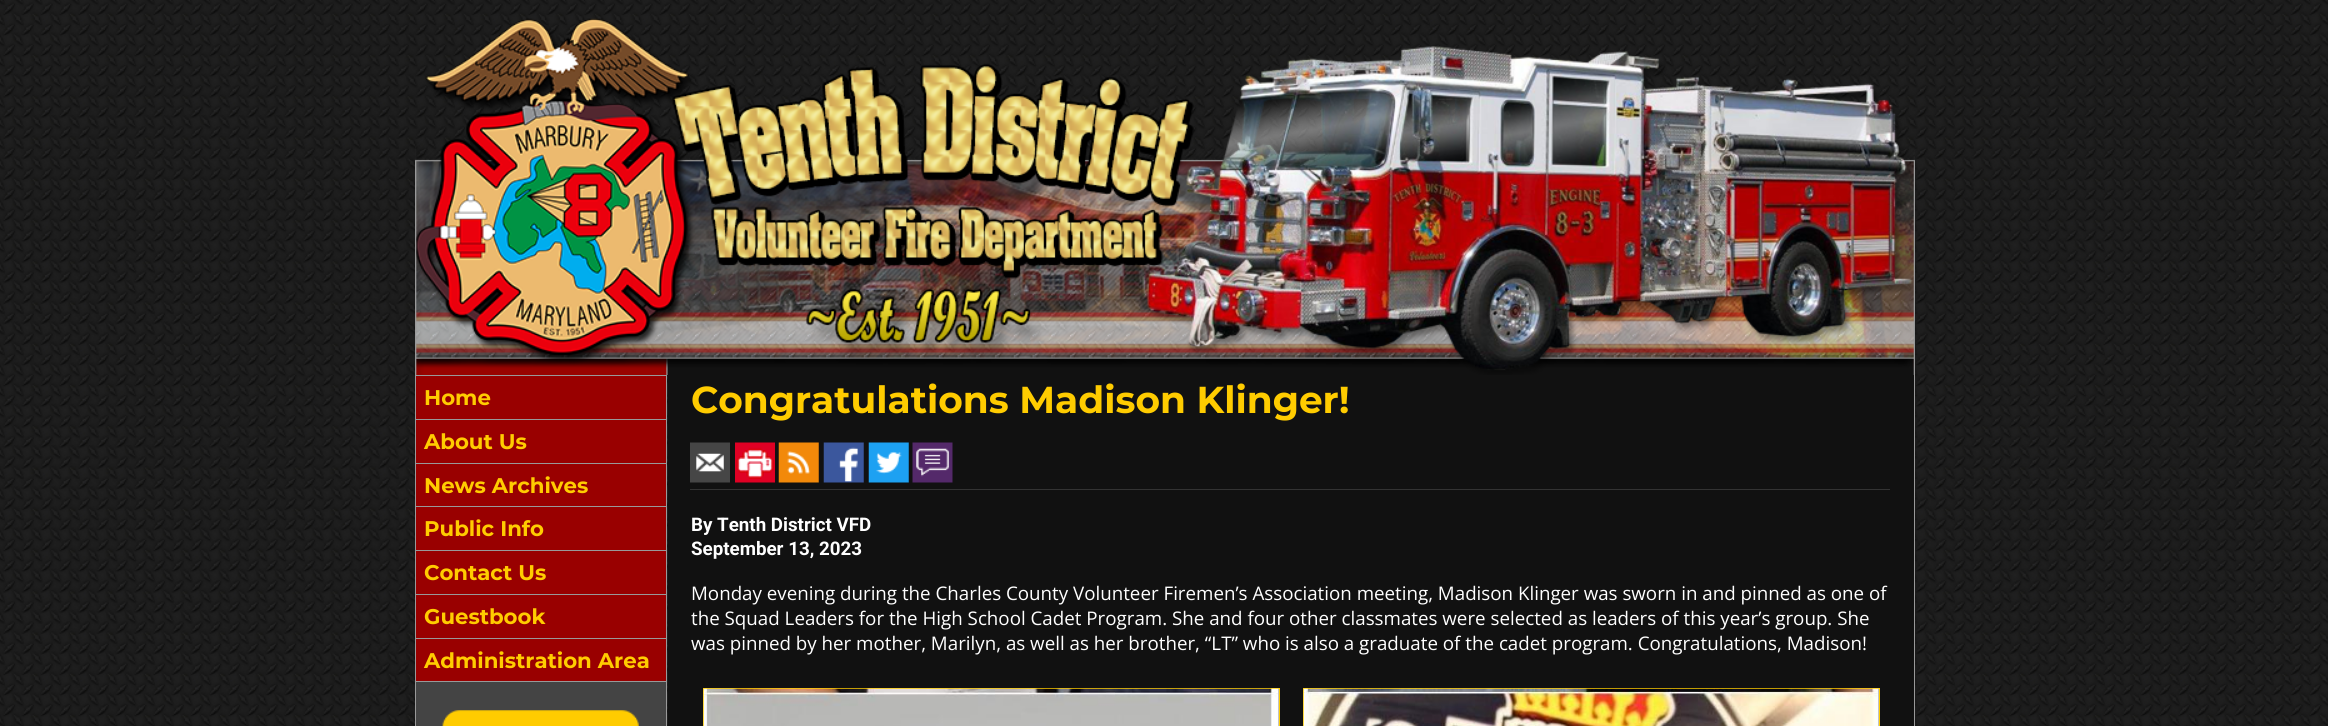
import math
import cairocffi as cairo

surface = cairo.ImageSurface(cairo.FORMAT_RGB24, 2328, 726)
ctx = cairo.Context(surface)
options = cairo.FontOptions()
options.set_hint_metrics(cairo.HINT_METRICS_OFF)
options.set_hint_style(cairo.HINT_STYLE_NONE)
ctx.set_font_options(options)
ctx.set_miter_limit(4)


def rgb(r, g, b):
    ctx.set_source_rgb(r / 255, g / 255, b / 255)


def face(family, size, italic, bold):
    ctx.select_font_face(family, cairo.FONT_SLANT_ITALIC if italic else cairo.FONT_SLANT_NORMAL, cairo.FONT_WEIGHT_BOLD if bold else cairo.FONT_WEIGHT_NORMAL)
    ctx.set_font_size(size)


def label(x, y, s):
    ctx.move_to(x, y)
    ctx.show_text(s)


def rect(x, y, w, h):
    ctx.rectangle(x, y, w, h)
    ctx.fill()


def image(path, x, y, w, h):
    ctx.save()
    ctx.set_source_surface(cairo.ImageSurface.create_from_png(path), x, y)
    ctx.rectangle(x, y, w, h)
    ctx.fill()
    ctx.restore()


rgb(255, 255, 255)
ctx.paint()
image('image0.png', 0, 0, 2328, 726)
image('image1.png', 415, 18, 1500, 357)
rgb(153, 153, 153)
rect(415, 375, 1, 351)
rgb(68, 68, 68)
rect(416, 682, 250, 44)
rgb(153, 153, 153)
rect(416, 375, 250, 1)
rgb(153, 0, 0)
rect(416, 376, 250, 305)
face('Montserrat', 21.25, 0, 1)
rgb(255, 204, 0)
label(424, 405, 'Home')
rgb(153, 153, 153)
rect(416, 419, 250, 1)
rgb(255, 204, 0)
label(424, 449, 'About Us')
rgb(153, 153, 153)
rect(416, 463, 250, 1)
rgb(255, 204, 0)
label(424, 493, 'News Archives')
rgb(153, 153, 153)
rect(416, 506, 250, 1)
rgb(255, 204, 0)
label(424, 536, 'Public Info')
rgb(153, 153, 153)
rect(416, 550, 250, 1)
rgb(255, 204, 0)
label(424, 580, 'Contact Us')
rgb(153, 153, 153)
rect(416, 594, 250, 1)
rgb(255, 204, 0)
label(424, 624, 'Guestbook')
rgb(153, 153, 153)
rect(416, 638, 250, 1)
rgb(255, 204, 0)
label(424, 668, 'Administration Area')
rgb(153, 153, 153)
rect(416, 681, 250, 1)
image('image2.png', 442, 710, 197, 16)
rect(666, 375, 1, 351)
rgb(17, 17, 17)
rect(668, 375, 1246, 351)
face('Montserrat', 37.5, 0, 1)
rgb(255, 204, 0)
label(691, 413, 'Congratulations Madison Klinger!')
image('image3.png', 690, 442, 40, 41)
image('image4.png', 735, 442, 40, 41)
image('image5.png', 778, 442, 41, 41)
image('image6.png', 823, 442, 41, 41)
image('image7.png', 868, 442, 41, 41)
image('image8.png', 912, 442, 41, 41)
rgb(51, 51, 51)
rect(690, 489, 1200, 1)
face('Roboto', 18.75, 0, 1)
rgb(255, 255, 255)
label(691, 531, 'By Tenth District VFD')
label(691, 555, 'September 13, 2023')
face('Open Sans', 18.75, 0, 0)
label(691, 600, 'Monday evening during the Charles County Volunteer Firemen’s Association meeting, Madison Klinger was sworn in and pinned as one of')
label(691, 625, 'the Squad Leaders for the High School Cadet Program. She and four other classmates were selected as leaders of this year’s group. She')
label(691, 650, 'was pinned by her mother, Marilyn, as well as her brother, “LT” who is also a graduate of the cadet program. Congratulations, Madison!')
ctx.rectangle(703.5, 688.5, 576, 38)
rgb(255, 204, 0)
ctx.set_line_width(1)
ctx.stroke()
image('image9.png', 703, 688, 576, 38)
ctx.rectangle(1303.5, 688.5, 576, 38)
ctx.stroke()
image('image10.png', 1303, 688, 576, 38)
rgb(153, 153, 153)
rect(1914, 375, 1, 351)
surface.write_to_png('render.png')
